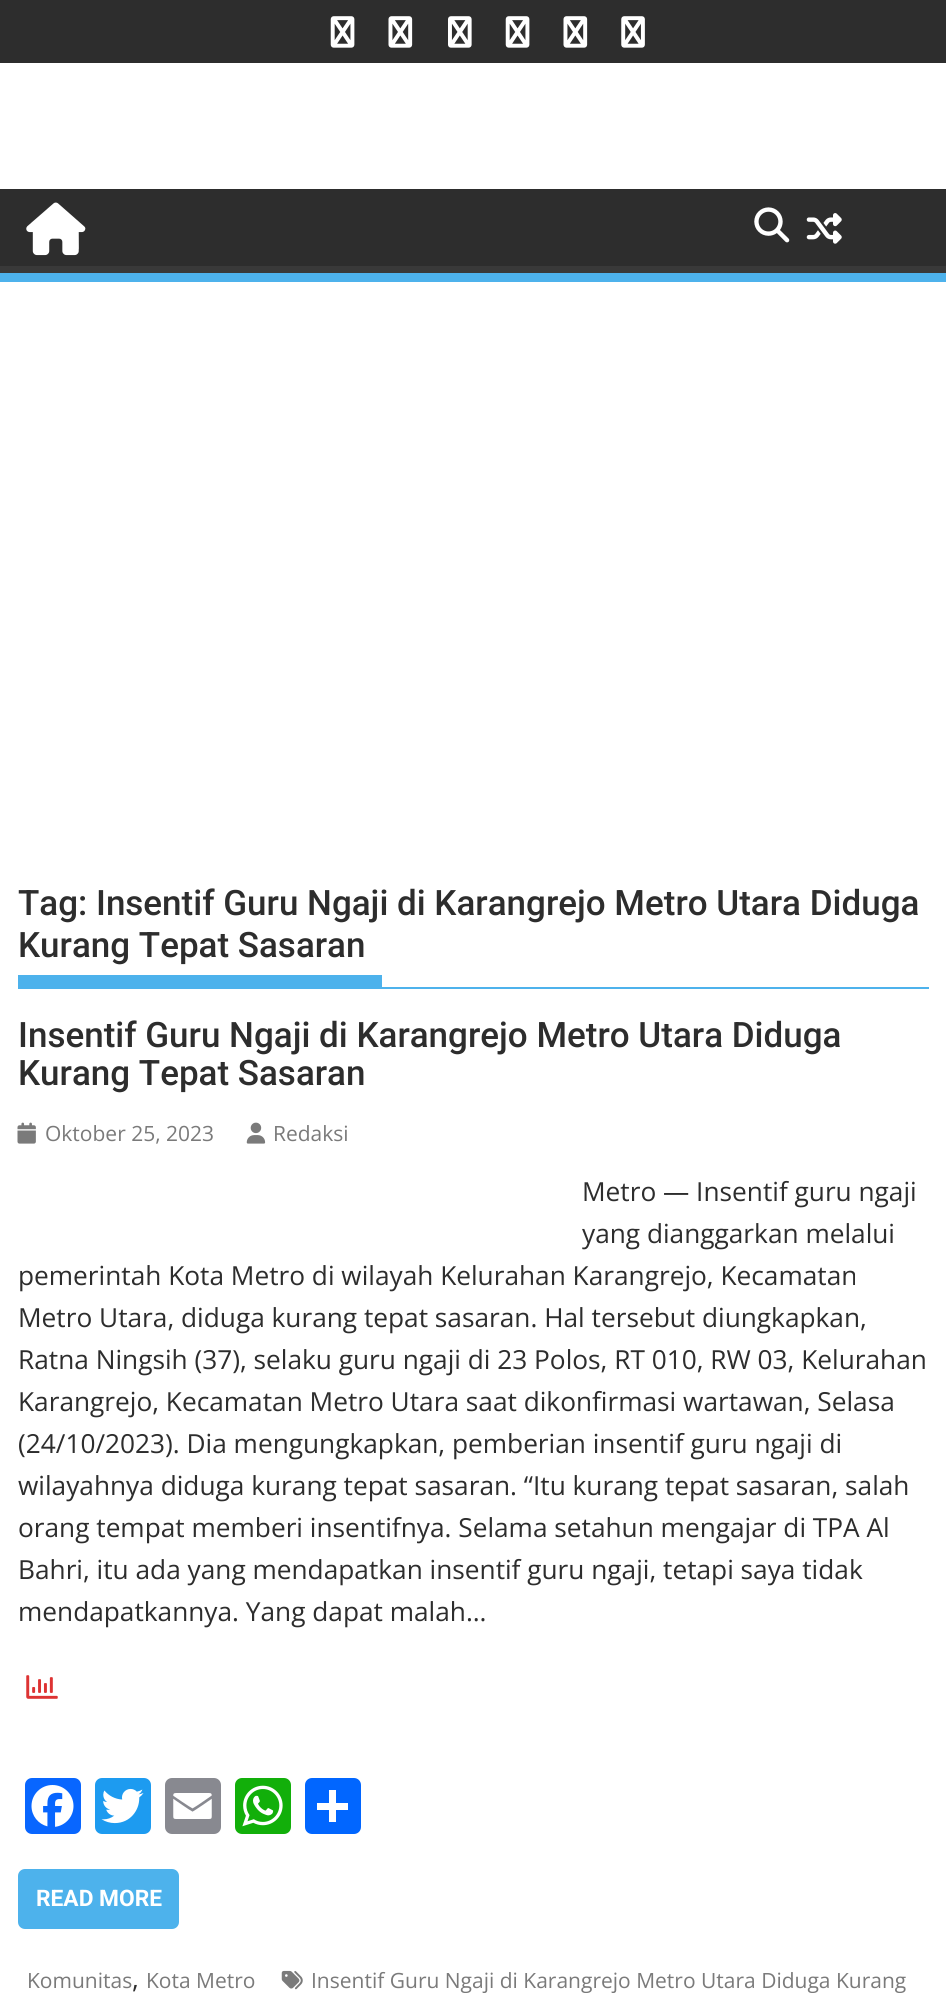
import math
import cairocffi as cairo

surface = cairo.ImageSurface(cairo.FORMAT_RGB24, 946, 1993)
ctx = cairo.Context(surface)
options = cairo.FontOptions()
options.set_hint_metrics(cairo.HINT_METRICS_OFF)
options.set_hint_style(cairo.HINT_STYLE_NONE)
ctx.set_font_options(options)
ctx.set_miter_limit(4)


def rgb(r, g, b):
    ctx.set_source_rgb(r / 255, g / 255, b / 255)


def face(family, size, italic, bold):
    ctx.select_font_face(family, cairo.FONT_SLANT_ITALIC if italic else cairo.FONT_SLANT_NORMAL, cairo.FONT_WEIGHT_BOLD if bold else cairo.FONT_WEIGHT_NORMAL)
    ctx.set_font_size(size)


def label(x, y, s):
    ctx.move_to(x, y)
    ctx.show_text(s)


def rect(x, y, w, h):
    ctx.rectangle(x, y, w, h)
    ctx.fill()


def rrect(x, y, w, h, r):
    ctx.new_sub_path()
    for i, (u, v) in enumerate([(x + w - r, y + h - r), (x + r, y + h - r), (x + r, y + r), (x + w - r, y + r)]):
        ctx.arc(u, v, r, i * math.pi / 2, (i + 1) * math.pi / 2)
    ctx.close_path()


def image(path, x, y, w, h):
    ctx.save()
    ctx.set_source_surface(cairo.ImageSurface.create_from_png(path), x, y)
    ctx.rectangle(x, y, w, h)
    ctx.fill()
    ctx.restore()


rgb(255, 255, 255)
ctx.paint()
rgb(45, 45, 45)
rect(0, 0, 946, 63)
image('image0.png', 330, 16, 25, 32)
image('image1.png', 388, 16, 25, 32)
image('image2.png', 448, 16, 24, 32)
image('image0.png', 505, 16, 25, 32)
image('image1.png', 563, 16, 25, 32)
image('image3.png', 621, 16, 24, 32)
rect(0, 189, 946, 77)
ctx.save()
ctx.rectangle(0, 189, 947, 84)
ctx.clip()
rgb(57, 57, 57)
ctx.set_fill_rule(cairo.FILL_RULE_EVEN_ODD)
ctx.new_path()
ctx.move_to(-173, 16)
ctx.line_to(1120, 16)
ctx.line_to(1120, 446)
ctx.line_to(-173, 446)
ctx.close_path()
ctx.move_to(-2, 178)
ctx.line_to(945, 178)
ctx.curve_to(946, 178, 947, 179, 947, 180)
ctx.line_to(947, 264)
ctx.curve_to(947, 265, 946, 266, 945, 266)
ctx.line_to(-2, 266)
ctx.curve_to(-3, 266, -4, 265, -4, 264)
ctx.line_to(-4, 180)
ctx.curve_to(-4, 179, -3, 178, -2, 178)
ctx.close_path()
ctx.fill()
ctx.restore()
rgb(77, 178, 236)
rect(0, 273, 946, 9)
image('image4.png', 26, 202, 60, 54)
image('image5.png', 754, 207, 36, 36)
image('image6.png', 806, 213, 36, 31)
rect(18, 987, 911, 2)
face('Roboto Medium', 35, 0, 0)
rgb(45, 45, 45)
label(18, 915, 'Tag: Insentif Guru Ngaji di Karangrejo Metro Utara Diduga')
label(18, 957, 'Kurang Tepat Sasaran')
rgb(77, 178, 236)
rect(18, 975, 364, 12)
rgb(45, 45, 45)
label(18, 1047, 'Insentif Guru Ngaji di Karangrejo Metro Utara Diduga')
label(18, 1085, 'Kurang Tepat Sasaran')
image('image7.png', 17, 1122, 19, 22)
face('Open Sans', 21, 0, 0)
rgb(122, 122, 122)
label(45, 1141, 'Oktober 25, 2023')
image('image8.png', 246, 1122, 20, 22)
label(273, 1141, 'Redaksi')
face('Open Sans', 26.25, 0, 0)
rgb(45, 45, 45)
label(582, 1201, 'Metro — Insentif guru ngaji')
label(582, 1243, 'yang dianggarkan melalui')
label(18, 1285, 'pemerintah Kota Metro di wilayah Kelurahan Karangrejo, Kecamatan')
label(18, 1327, 'Metro Utara, diduga kurang tepat sasaran. Hal tersebut diungkapkan,')
label(18, 1369, 'Ratna Ningsih (37), selaku guru ngaji di 23 Polos, RT 010, RW 03, Kelurahan')
label(18, 1411, 'Karangrejo, Kecamatan Metro Utara saat dikonfirmasi wartawan, Selasa')
label(18, 1453, '(24/10/2023). Dia mengungkapkan, pemberian insentif guru ngaji di')
label(18, 1495, 'wilayahnya diduga kurang tepat sasaran. “Itu kurang tepat sasaran, salah')
label(18, 1537, 'orang tempat memberi insentifnya. Selama setahun mengajar di TPA Al')
label(18, 1579, 'Bahri, itu ada yang mendapatkan insentif guru ngaji, tetapi saya tidak')
label(18, 1621, 'mendapatkannya. Yang dapat malah…')
image('image9.png', 26, 1675, 32, 24)
rgb(8, 102, 255)
rrect(25, 1778, 56, 56, 7)
ctx.fill()
image('image10.png', 31, 1785, 43, 42)
rgb(29, 155, 240)
rrect(95, 1778, 56, 56, 7)
ctx.fill()
image('image11.png', 101, 1788, 43, 36)
rgb(136, 137, 144)
rrect(165, 1778, 56, 56, 7)
ctx.fill()
image('image12.png', 173, 1793, 39, 26)
rgb(18, 175, 10)
rrect(235, 1778, 56, 56, 7)
ctx.fill()
image('image13.png', 242, 1785, 41, 42)
rgb(1, 102, 255)
rrect(305, 1778, 56, 56, 7)
ctx.fill()
rgb(255, 255, 255)
rect(329, 1790, 7, 32)
rect(317, 1803, 31, 7)
rgb(77, 178, 236)
rrect(18, 1869, 161, 60, 7)
ctx.fill()
face('Roboto', 22.75, 0, 1)
rgb(255, 255, 255)
label(36, 1906, 'READ MORE')
face('Open Sans', 21, 0, 0)
rgb(122, 122, 122)
label(27, 1988, 'Komunitas')
face('Open Sans', 26.25, 0, 0)
rgb(45, 45, 45)
label(132, 1988, ',')
face('Open Sans', 21, 0, 0)
rgb(122, 122, 122)
label(146, 1988, 'Kota Metro')
image('image14.png', 281, 1970, 22, 20)
label(311, 1988, 'Insentif Guru Ngaji di Karangrejo Metro Utara Diduga Kurang')
surface.write_to_png('render.png')
